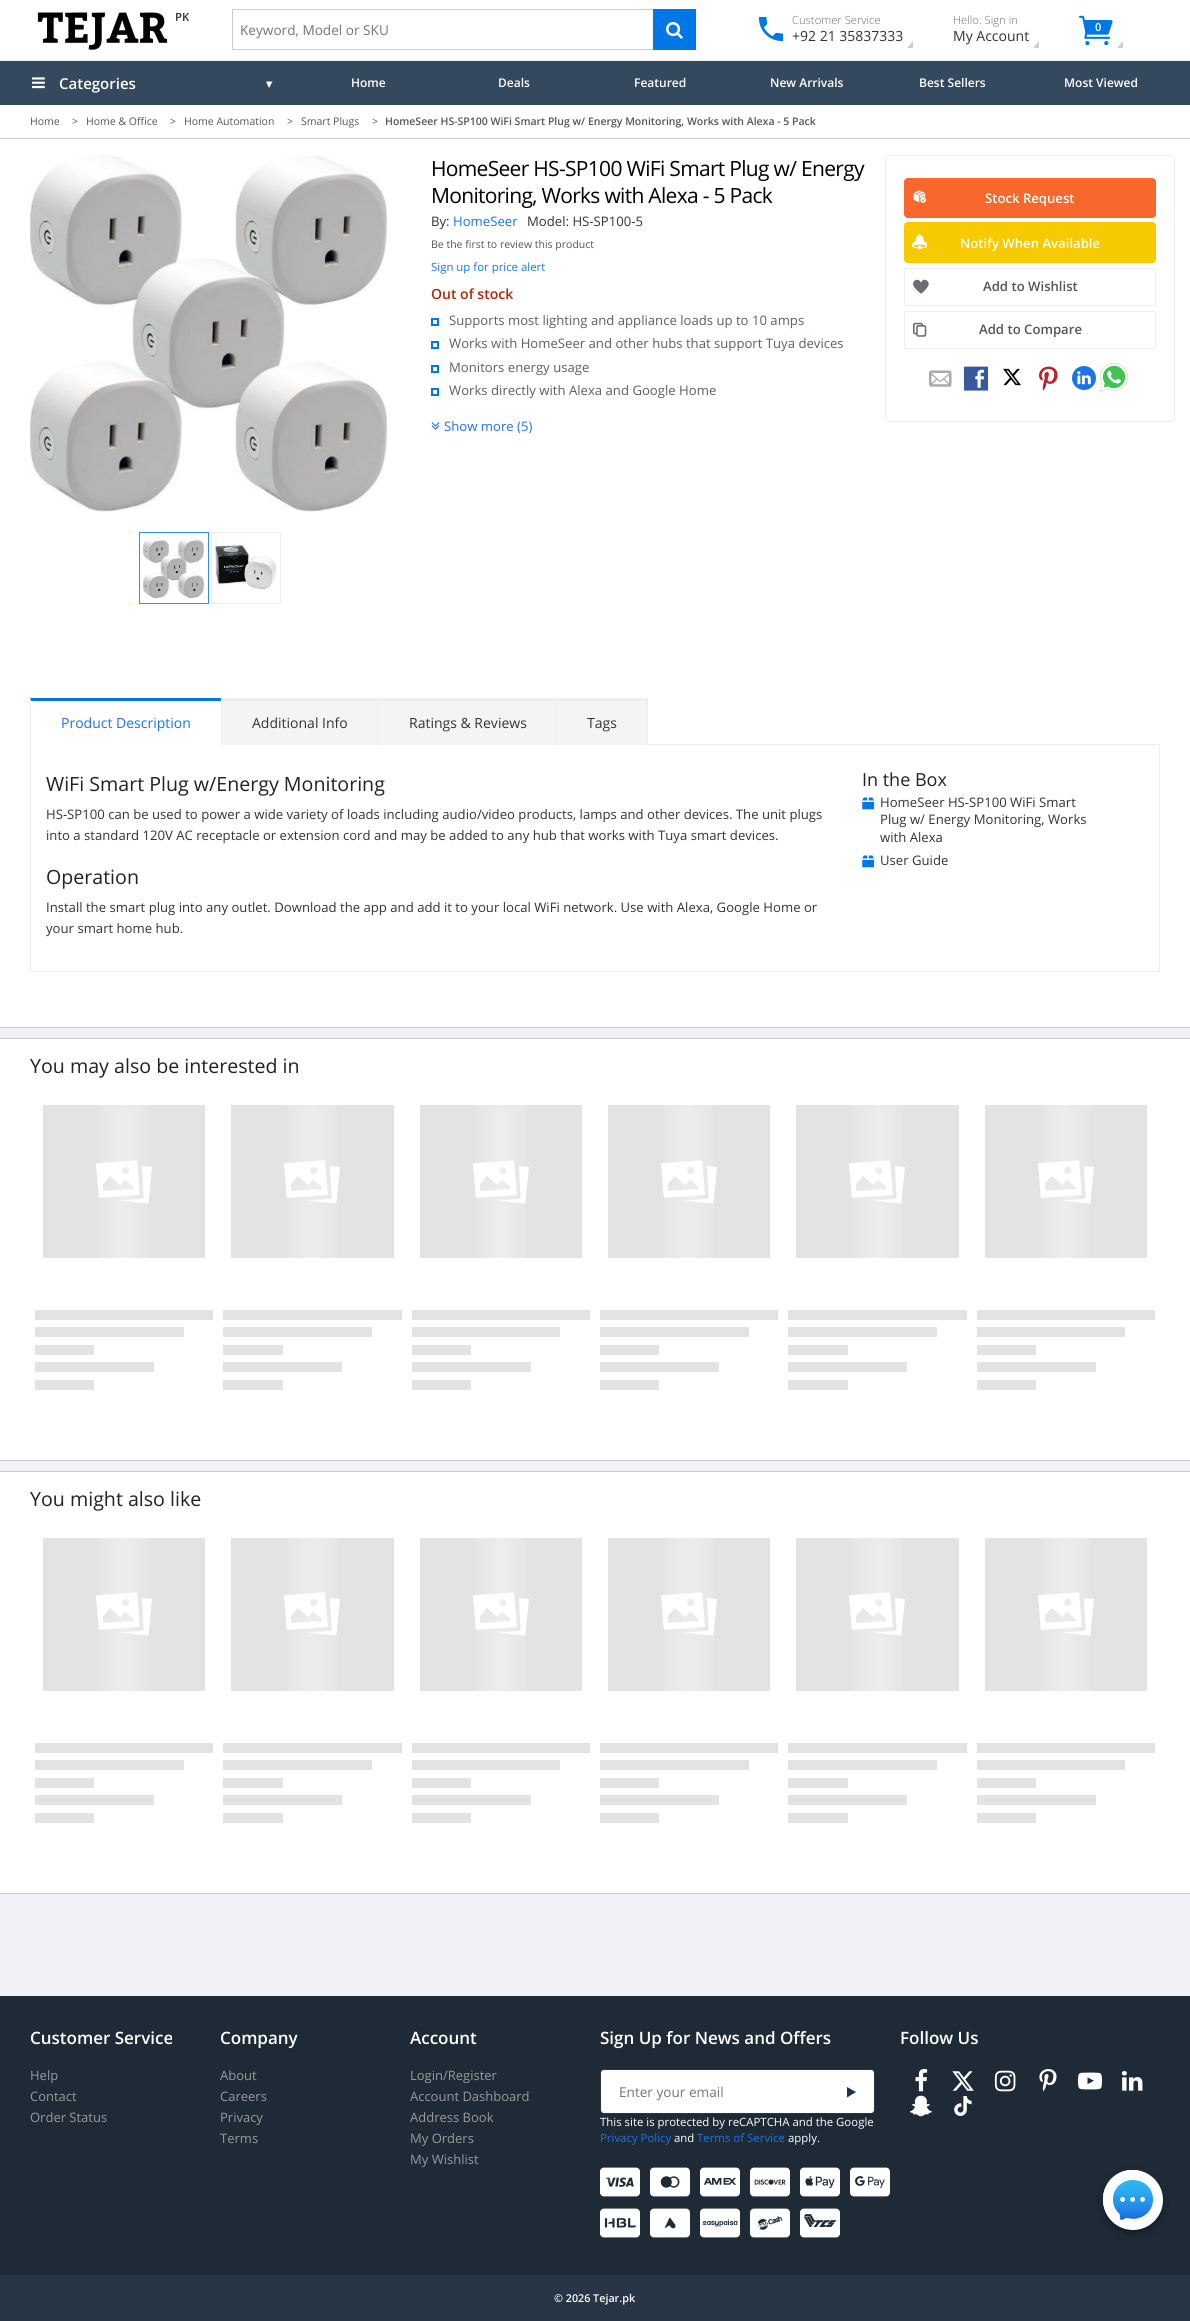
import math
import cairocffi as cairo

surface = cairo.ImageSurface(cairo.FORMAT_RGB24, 1190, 2321)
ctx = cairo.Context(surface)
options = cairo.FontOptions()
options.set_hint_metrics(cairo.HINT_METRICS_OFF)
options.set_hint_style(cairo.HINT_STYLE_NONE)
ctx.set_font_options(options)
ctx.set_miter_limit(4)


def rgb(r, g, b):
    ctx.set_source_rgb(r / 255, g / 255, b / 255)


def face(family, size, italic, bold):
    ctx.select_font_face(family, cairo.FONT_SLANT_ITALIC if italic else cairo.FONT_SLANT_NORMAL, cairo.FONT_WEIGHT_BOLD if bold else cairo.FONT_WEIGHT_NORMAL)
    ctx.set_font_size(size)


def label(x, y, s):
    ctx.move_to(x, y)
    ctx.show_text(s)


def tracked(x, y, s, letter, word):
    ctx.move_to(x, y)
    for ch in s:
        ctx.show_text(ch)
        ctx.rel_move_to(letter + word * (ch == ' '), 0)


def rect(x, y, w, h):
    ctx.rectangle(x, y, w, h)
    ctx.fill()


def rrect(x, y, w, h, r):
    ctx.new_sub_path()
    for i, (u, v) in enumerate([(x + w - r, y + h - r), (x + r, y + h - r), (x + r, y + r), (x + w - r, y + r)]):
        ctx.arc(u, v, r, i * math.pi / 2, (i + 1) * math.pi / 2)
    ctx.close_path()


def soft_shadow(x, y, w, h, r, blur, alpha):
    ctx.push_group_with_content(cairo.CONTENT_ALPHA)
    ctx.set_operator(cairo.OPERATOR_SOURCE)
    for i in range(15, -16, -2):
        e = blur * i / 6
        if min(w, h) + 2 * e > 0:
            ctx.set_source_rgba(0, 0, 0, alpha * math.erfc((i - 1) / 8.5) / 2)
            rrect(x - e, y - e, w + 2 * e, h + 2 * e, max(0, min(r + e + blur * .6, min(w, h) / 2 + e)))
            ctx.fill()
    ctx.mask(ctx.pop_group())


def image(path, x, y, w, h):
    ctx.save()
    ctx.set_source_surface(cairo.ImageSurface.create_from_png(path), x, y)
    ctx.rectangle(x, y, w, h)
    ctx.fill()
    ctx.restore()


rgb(241, 242, 247)
ctx.paint()
rgb(255, 255, 255)
rect(0, 0, 1190, 60)
rgb(238, 238, 238)
rect(0, 60, 1190, 1)
image('image0.png', 37, 12, 131, 38)
face('Open Sans SemiBold', 11.25, 0, 0)
rgb(51, 51, 51)
label(175, 21, 'PK')
rrect(232.5, 9.5, 463, 40, 0.5)
rgb(204, 204, 204)
ctx.set_line_width(1)
ctx.stroke()
face('Open Sans', 13.6, 0, 0)
rgb(117, 117, 117)
label(240, 35, 'Keyword, Model or SKU')
rgb(0, 119, 229)
rect(653, 9, 43, 41)
image('image1.png', 666, 22, 17, 17)
image('image2.png', 759, 17, 24, 24)
face('Open Sans Light', 11.25, 0, 0)
rgb(106, 110, 115)
label(792, 24, 'Customer Service')
face('Open Sans', 14, 0, 0)
rgb(51, 51, 51)
label(792, 41, '+92 21 35837333')
rgb(206, 206, 206)
ctx.new_path()
ctx.move_to(913, 48)
ctx.line_to(907, 48)
ctx.line_to(913, 41)
ctx.close_path()
ctx.fill()
face('Open Sans Light', 11.25, 0, 0)
rgb(106, 110, 115)
label(953, 24, 'Hello. Sign in')
face('Open Sans', 14, 0, 0)
rgb(51, 51, 51)
label(953, 41, 'My Account')
rgb(206, 206, 206)
ctx.new_path()
ctx.move_to(1039, 48)
ctx.line_to(1033, 48)
ctx.line_to(1039, 41)
ctx.close_path()
ctx.fill()
image('image3.png', 1079, 15, 34, 31)
face('Open Sans SemiBold', 11, 0, 0)
rgb(255, 255, 255)
label(1095, 31, '0')
rgb(206, 206, 206)
ctx.new_path()
ctx.move_to(1123, 48)
ctx.line_to(1117, 48)
ctx.line_to(1123, 41)
ctx.close_path()
ctx.fill()
rgb(52, 73, 94)
rect(0, 61, 1190, 44)
image('image4.png', 32, 77, 13, 12)
face('Open Sans SemiBold', 15, 0, 0)
rgb(255, 255, 255)
label(59, 89, 'Categories')
ctx.new_path()
ctx.move_to(269, 88)
ctx.line_to(266, 81.5)
ctx.line_to(272.5, 81.5)
ctx.close_path()
ctx.fill()
face('Open Sans SemiBold', 12, 0, 0)
label(351, 87, 'Home')
label(498, 87, 'Deals')
label(634, 87, 'Featured')
label(770, 87, 'New Arrivals')
label(919, 87, 'Best Sellers')
label(1064, 87, 'Most Viewed')
rect(0, 105, 1190, 33)
rgb(204, 204, 204)
rect(0, 138, 1190, 1)
face('Open Sans', 10.5, 0, 0)
rgb(85, 85, 85)
label(30, 125, 'Home')
label(72, 125, '>')
label(86, 125, 'Home & Office')
label(170, 125, '>')
label(184, 125, 'Home Automation')
label(287, 125, '>')
label(301, 125, 'Smart Plugs')
label(372, 125, '>')
face('Open Sans SemiBold', 10.5, 0, 0)
label(385, 125, 'HomeSeer HS-SP100 WiFi Smart Plug w/ Energy Monitoring, Works with Alexa - 5 Pack')
rgb(255, 255, 255)
rect(0, 139, 1190, 888)
rgb(204, 204, 204)
rect(0, 1027, 1190, 1)
image('image5.png', 30, 155, 357, 357)
ctx.rectangle(139.5, 532.5, 69, 71)
rgb(45, 144, 236)
ctx.stroke()
image('image6.png', 143, 537, 61, 61)
ctx.rectangle(211.5, 532.5, 69, 71)
rgb(238, 238, 238)
ctx.stroke()
image('image7.png', 215, 542, 61, 48)
face('Open Sans', 21, 0, 0)
rgb(0, 0, 0)
tracked(431, 176, 'HomeSeer HS-SP100 WiFi Smart Plug w/ Energy', -0.7, 0)
tracked(431, 203, 'Monitoring, Works with Alexa - 5 Pack', -0.7, 0)
face('Open Sans', 13.13, 0, 0)
rgb(51, 51, 51)
label(431, 226, 'By:')
rgb(26, 115, 232)
label(453, 226, 'HomeSeer')
rgb(51, 51, 51)
label(527, 226, 'Model: HS-SP100-5')
face('Open Sans', 10.5, 0, 0)
rgb(85, 85, 85)
label(431, 248, 'Be the first to review this product')
face('Open Sans', 11.4, 0, 0)
rgb(26, 115, 232)
label(431, 271, 'Sign up for price alert')
face('Open Sans SemiBold', 14, 0, 0)
rgb(177, 39, 4)
label(431, 299, 'Out of stock')
ctx.rectangle(432, 319, 6, 6)
rgb(0, 119, 229)
ctx.set_line_width(2)
ctx.stroke()
face('Open Sans', 13.13, 0, 0)
rgb(91, 96, 100)
label(449, 325, 'Supports most lighting and appliance loads up to 10 amps')
ctx.rectangle(432, 342, 6, 6)
rgb(0, 119, 229)
ctx.stroke()
rgb(91, 96, 100)
label(449, 348, 'Works with HomeSeer and other hubs that support Tuya devices')
ctx.rectangle(432, 366, 6, 6)
rgb(0, 119, 229)
ctx.stroke()
rgb(91, 96, 100)
label(449, 372, 'Monitors energy usage')
ctx.rectangle(432, 389, 6, 6)
rgb(0, 119, 229)
ctx.stroke()
rgb(91, 96, 100)
label(449, 395, 'Works directly with Alexa and Google Home')
image('image8.png', 431, 422, 9, 8)
rgb(26, 115, 232)
label(444, 431, 'Show more (5)')
rrect(885.5, 155.5, 289, 266, 3.5)
rgb(238, 238, 238)
ctx.set_line_width(1)
ctx.stroke()
rgb(248, 104, 44)
rrect(904, 178, 252, 40, 4)
ctx.fill()
image('image9.png', 913, 190, 14, 13)
face('Open Sans SemiBold', 13.13, 0, 0)
rgb(255, 255, 255)
label(985, 203, 'Stock Request')
rgb(247, 202, 0)
rrect(904, 222, 252, 41, 4)
ctx.fill()
image('image10.png', 912, 234, 15, 15)
rgb(255, 255, 255)
label(960, 248, 'Notify When Available')
rrect(904.5, 268.5, 251, 37, 1.5)
rgb(238, 238, 238)
ctx.stroke()
image('image11.png', 913, 279, 16, 15)
rgb(85, 85, 85)
label(983, 291, 'Add to Wishlist')
rrect(904.5, 311.5, 251, 37, 1.5)
rgb(238, 238, 238)
ctx.stroke()
image('image12.png', 913, 322, 14, 15)
rgb(85, 85, 85)
label(979, 334, 'Add to Compare')
image('image13.png', 929, 370, 23, 17)
image('image14.png', 964, 366, 24, 25)
image('image15.png', 1003, 368, 18, 18)
image('image16.png', 1039, 366, 19, 25)
image('image17.png', 1072, 366, 24, 24)
image('image18.png', 1099, 362, 30, 30)
ctx.rectangle(30.5, 744.5, 1129, 227)
rgb(238, 238, 238)
ctx.stroke()
rgb(255, 255, 255)
rect(31, 744, 190, 1)
rgb(0, 119, 229)
ctx.new_path()
ctx.move_to(30, 698)
ctx.line_to(222, 698)
ctx.line_to(221, 701)
ctx.line_to(31, 701)
ctx.close_path()
ctx.fill()
rgb(238, 238, 238)
ctx.new_path()
ctx.move_to(222, 698)
ctx.line_to(222, 745)
ctx.line_to(221, 745)
ctx.line_to(221, 701)
ctx.close_path()
ctx.fill()
ctx.new_path()
ctx.move_to(30, 745)
ctx.line_to(30, 698)
ctx.line_to(31, 701)
ctx.line_to(31, 745)
ctx.close_path()
ctx.fill()
face('Open Sans', 14, 0, 0)
rgb(26, 115, 232)
label(61, 728, 'Product Description')
rgb(244, 244, 244)
rect(222, 701, 156, 44)
rgb(238, 238, 238)
rect(221, 698, 158, 3)
rect(378, 698, 1, 47)
rgb(51, 51, 51)
label(252, 728, 'Additional Info')
rgb(244, 244, 244)
rect(379, 701, 177, 44)
rgb(238, 238, 238)
rect(378, 698, 179, 3)
rect(556, 698, 1, 47)
rgb(51, 51, 51)
label(409, 728, 'Ratings & Reviews')
rgb(244, 244, 244)
rect(557, 701, 90, 44)
rgb(238, 238, 238)
rect(556, 698, 92, 3)
rect(647, 698, 1, 47)
rgb(51, 51, 51)
label(587, 728, 'Tags')
face('Open Sans', 19.6, 0, 0)
rgb(34, 34, 34)
label(46, 791, 'WiFi Smart Plug w/Energy Monitoring')
face('Open Sans', 13.13, 0, 0)
rgb(51, 51, 51)
label(46, 819, 'HS-SP100 can be used to power a wide variety of loads including audio/video products, lamps and other devices. The unit plugs')
label(46, 840, 'into a standard 120V AC receptacle or extension cord and may be added to any hub that works with Tuya smart devices.')
face('Open Sans', 19.6, 0, 0)
rgb(34, 34, 34)
label(46, 884, 'Operation')
face('Open Sans', 13.13, 0, 0)
rgb(51, 51, 51)
label(46, 912, 'Install the smart plug into any outlet. Download the app and add it to your local WiFi network. Use with Alexa, Google Home or')
label(46, 933, 'your smart home hub.')
face('Open Sans', 18, 0, 0)
rgb(34, 34, 34)
label(862, 786, 'In the Box')
image('image19.png', 862, 797, 12, 13)
face('Open Sans', 13.13, 0, 0)
rgb(51, 51, 51)
label(880, 807, 'HomeSeer HS-SP100 WiFi Smart')
label(880, 824, 'Plug w/ Energy Monitoring, Works')
label(880, 842, 'with Alexa')
image('image19.png', 862, 855, 12, 13)
label(880, 865, 'User Guide')
rgb(255, 255, 255)
rect(0, 1039, 1190, 421)
rgb(204, 204, 204)
rect(0, 1038, 1190, 1)
rect(0, 1460, 1190, 1)
face('Open Sans', 19.6, 0, 0)
rgb(34, 34, 34)
label(30, 1073, 'You may also be interested in')
rgb(227, 227, 227)
rect(43, 1105, 162, 153)
image('image20.png', 96, 1160, 56, 44)
gradient = cairo.LinearGradient(-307, 1189, 555, 1189)
gradient.add_color_stop_rgba(0.46, 1, 1, 1, 0)
gradient.add_color_stop_rgba(0.5, 1, 1, 1, 0.35)
gradient.add_color_stop_rgba(0.54, 1, 1, 1, 0)
ctx.set_source(gradient)
rect(99, 1105, 50, 153)
rgb(227, 227, 227)
rect(35, 1310, 178, 10)
rect(35, 1327, 149, 10)
rect(35, 1345, 59, 10)
rect(35, 1362, 119, 10)
rect(35, 1380, 59, 10)
rect(231, 1105, 163, 153)
image('image20.png', 284, 1160, 56, 44)
gradient = cairo.LinearGradient(-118, 1189, 743, 1189)
gradient.add_color_stop_rgba(0.46, 1, 1, 1, 0)
gradient.add_color_stop_rgba(0.5, 1, 1, 1, 0.35)
gradient.add_color_stop_rgba(0.54, 1, 1, 1, 0)
ctx.set_source(gradient)
rect(287, 1105, 51, 153)
rgb(227, 227, 227)
rect(223, 1310, 179, 10)
rect(223, 1327, 149, 10)
rect(223, 1345, 60, 10)
rect(223, 1362, 119, 10)
rect(223, 1380, 60, 10)
rect(420, 1105, 162, 153)
image('image20.png', 473, 1160, 56, 44)
gradient = cairo.LinearGradient(70, 1189, 932, 1189)
gradient.add_color_stop_rgba(0.46, 1, 1, 1, 0)
gradient.add_color_stop_rgba(0.5, 1, 1, 1, 0.35)
gradient.add_color_stop_rgba(0.54, 1, 1, 1, 0)
ctx.set_source(gradient)
rect(476, 1105, 50, 153)
rgb(227, 227, 227)
rect(412, 1310, 178, 10)
rect(412, 1327, 148, 10)
rect(412, 1345, 59, 10)
rect(412, 1362, 119, 10)
rect(412, 1380, 59, 10)
rect(608, 1105, 162, 153)
image('image20.png', 661, 1160, 56, 44)
gradient = cairo.LinearGradient(258, 1189, 1120, 1189)
gradient.add_color_stop_rgba(0.46, 1, 1, 1, 0)
gradient.add_color_stop_rgba(0.5, 1, 1, 1, 0.35)
gradient.add_color_stop_rgba(0.54, 1, 1, 1, 0)
ctx.set_source(gradient)
rect(664, 1105, 50, 153)
rgb(227, 227, 227)
rect(600, 1310, 178, 10)
rect(600, 1327, 149, 10)
rect(600, 1345, 59, 10)
rect(600, 1362, 119, 10)
rect(600, 1380, 59, 10)
rect(796, 1105, 163, 153)
image('image20.png', 849, 1160, 56, 44)
gradient = cairo.LinearGradient(447, 1189, 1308, 1189)
gradient.add_color_stop_rgba(0.46, 1, 1, 1, 0)
gradient.add_color_stop_rgba(0.5, 1, 1, 1, 0.35)
gradient.add_color_stop_rgba(0.54, 1, 1, 1, 0)
ctx.set_source(gradient)
rect(852, 1105, 51, 153)
rgb(227, 227, 227)
rect(788, 1310, 179, 10)
rect(788, 1327, 149, 10)
rect(788, 1345, 60, 10)
rect(788, 1362, 119, 10)
rect(788, 1380, 60, 10)
rect(985, 1105, 162, 153)
image('image20.png', 1038, 1160, 56, 44)
gradient = cairo.LinearGradient(635, 1189, 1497, 1189)
gradient.add_color_stop_rgba(0.46, 1, 1, 1, 0)
gradient.add_color_stop_rgba(0.5, 1, 1, 1, 0.35)
gradient.add_color_stop_rgba(0.54, 1, 1, 1, 0)
ctx.set_source(gradient)
rect(1041, 1105, 50, 153)
rgb(227, 227, 227)
rect(977, 1310, 178, 10)
rect(977, 1327, 148, 10)
rect(977, 1345, 59, 10)
rect(977, 1362, 119, 10)
rect(977, 1380, 59, 10)
rgb(255, 255, 255)
rect(0, 1472, 1190, 421)
rgb(204, 204, 204)
rect(0, 1471, 1190, 1)
rect(0, 1893, 1190, 1)
rgb(34, 34, 34)
label(30, 1506, 'You might also like')
rgb(227, 227, 227)
rect(43, 1538, 162, 153)
image('image20.png', 96, 1592, 56, 44)
gradient = cairo.LinearGradient(-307, 1622, 555, 1622)
gradient.add_color_stop_rgba(0.46, 1, 1, 1, 0)
gradient.add_color_stop_rgba(0.5, 1, 1, 1, 0.35)
gradient.add_color_stop_rgba(0.54, 1, 1, 1, 0)
ctx.set_source(gradient)
rect(99, 1538, 50, 153)
rgb(227, 227, 227)
rect(35, 1743, 178, 10)
rect(35, 1760, 149, 10)
rect(35, 1778, 59, 10)
rect(35, 1795, 119, 10)
rect(35, 1813, 59, 10)
rect(231, 1538, 163, 153)
image('image20.png', 284, 1592, 56, 44)
gradient = cairo.LinearGradient(-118, 1622, 743, 1622)
gradient.add_color_stop_rgba(0.46, 1, 1, 1, 0)
gradient.add_color_stop_rgba(0.5, 1, 1, 1, 0.35)
gradient.add_color_stop_rgba(0.54, 1, 1, 1, 0)
ctx.set_source(gradient)
rect(287, 1538, 51, 153)
rgb(227, 227, 227)
rect(223, 1743, 179, 10)
rect(223, 1760, 149, 10)
rect(223, 1778, 60, 10)
rect(223, 1795, 119, 10)
rect(223, 1813, 60, 10)
rect(420, 1538, 162, 153)
image('image20.png', 473, 1592, 56, 44)
gradient = cairo.LinearGradient(70, 1622, 932, 1622)
gradient.add_color_stop_rgba(0.46, 1, 1, 1, 0)
gradient.add_color_stop_rgba(0.5, 1, 1, 1, 0.35)
gradient.add_color_stop_rgba(0.54, 1, 1, 1, 0)
ctx.set_source(gradient)
rect(476, 1538, 50, 153)
rgb(227, 227, 227)
rect(412, 1743, 178, 10)
rect(412, 1760, 148, 10)
rect(412, 1778, 59, 10)
rect(412, 1795, 119, 10)
rect(412, 1813, 59, 10)
rect(608, 1538, 162, 153)
image('image20.png', 661, 1592, 56, 44)
gradient = cairo.LinearGradient(258, 1622, 1120, 1622)
gradient.add_color_stop_rgba(0.46, 1, 1, 1, 0)
gradient.add_color_stop_rgba(0.5, 1, 1, 1, 0.35)
gradient.add_color_stop_rgba(0.54, 1, 1, 1, 0)
ctx.set_source(gradient)
rect(664, 1538, 50, 153)
rgb(227, 227, 227)
rect(600, 1743, 178, 10)
rect(600, 1760, 149, 10)
rect(600, 1778, 59, 10)
rect(600, 1795, 119, 10)
rect(600, 1813, 59, 10)
rect(796, 1538, 163, 153)
image('image20.png', 849, 1592, 56, 44)
gradient = cairo.LinearGradient(447, 1622, 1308, 1622)
gradient.add_color_stop_rgba(0.46, 1, 1, 1, 0)
gradient.add_color_stop_rgba(0.5, 1, 1, 1, 0.35)
gradient.add_color_stop_rgba(0.54, 1, 1, 1, 0)
ctx.set_source(gradient)
rect(852, 1538, 51, 153)
rgb(227, 227, 227)
rect(788, 1743, 179, 10)
rect(788, 1760, 149, 10)
rect(788, 1778, 60, 10)
rect(788, 1795, 119, 10)
rect(788, 1813, 60, 10)
rect(985, 1538, 162, 153)
image('image20.png', 1038, 1592, 56, 44)
gradient = cairo.LinearGradient(635, 1622, 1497, 1622)
gradient.add_color_stop_rgba(0.46, 1, 1, 1, 0)
gradient.add_color_stop_rgba(0.5, 1, 1, 1, 0.35)
gradient.add_color_stop_rgba(0.54, 1, 1, 1, 0)
ctx.set_source(gradient)
rect(1041, 1538, 50, 153)
rgb(227, 227, 227)
rect(977, 1743, 178, 10)
rect(977, 1760, 148, 10)
rect(977, 1778, 59, 10)
rect(977, 1795, 119, 10)
rect(977, 1813, 59, 10)
rgb(30, 43, 55)
rect(0, 1996, 1190, 279)
face('Open Sans SemiBold', 17, 0, 0)
rgb(255, 255, 255)
label(30, 2044, 'Customer Service')
face('Open Sans', 13, 0, 0)
rgb(153, 153, 153)
label(30, 2080, 'Help')
label(30, 2101, 'Contact')
label(30, 2122, 'Order Status')
face('Open Sans SemiBold', 17, 0, 0)
rgb(255, 255, 255)
label(220, 2044, 'Company')
face('Open Sans', 13, 0, 0)
rgb(153, 153, 153)
label(220, 2080, 'About')
label(220, 2101, 'Careers')
label(220, 2122, 'Privacy')
label(220, 2143, 'Terms')
face('Open Sans SemiBold', 17, 0, 0)
rgb(255, 255, 255)
label(410, 2044, 'Account')
face('Open Sans', 13, 0, 0)
rgb(153, 153, 153)
label(410, 2080, 'Login/Register')
label(410, 2101, 'Account Dashboard')
label(410, 2122, 'Address Book')
label(410, 2143, 'My Orders')
label(410, 2164, 'My Wishlist')
face('Open Sans SemiBold', 17, 0, 0)
rgb(255, 255, 255)
label(600, 2044, 'Sign Up for News and Offers')
rrect(600.5, 2069.5, 274, 44, 3.5)
ctx.fill_preserve()
rgb(38, 54, 70)
ctx.stroke()
face('Open Sans', 13.6, 0, 0)
rgb(117, 117, 117)
label(619, 2097, 'Enter your email')
rgb(34, 49, 63)
ctx.new_path()
ctx.move_to(847, 2097.5)
ctx.line_to(847, 2087)
ctx.line_to(856, 2092)
ctx.close_path()
ctx.fill()
face('Open Sans', 11.4, 0, 0)
rgb(255, 255, 255)
label(600, 2126, 'This site is protected by reCAPTCHA and the Google')
rgb(26, 115, 232)
label(600, 2142, 'Privacy Policy')
rgb(255, 255, 255)
label(674, 2142, 'and')
rgb(26, 115, 232)
label(697, 2142, 'Terms of Service')
rgb(255, 255, 255)
label(788, 2142, 'apply.')
image('image21.png', 600, 2167, 40, 30)
image('image22.png', 650, 2167, 40, 30)
image('image23.png', 700, 2167, 40, 30)
image('image24.png', 750, 2167, 40, 30)
image('image25.png', 800, 2167, 40, 30)
image('image26.png', 850, 2167, 40, 30)
image('image27.png', 600, 2208, 40, 30)
image('image28.png', 650, 2208, 40, 30)
image('image29.png', 700, 2208, 40, 30)
image('image30.png', 750, 2208, 40, 30)
image('image31.png', 800, 2208, 40, 30)
face('Open Sans SemiBold', 17, 0, 0)
label(900, 2044, 'Follow Us')
image('image32.png', 915, 2069, 13, 23)
image('image33.png', 952, 2071, 22, 20)
image('image34.png', 994, 2070, 22, 22)
image('image35.png', 1039, 2069, 18, 23)
image('image36.png', 1078, 2072, 24, 18)
image('image37.png', 1121, 2071, 22, 20)
image('image38.png', 910, 2095, 22, 22)
image('image39.png', 954, 2096, 18, 20)
rgb(38, 54, 70)
rect(0, 2275, 1190, 46)
face('Open Sans SemiBold', 10.75, 0, 0)
rgb(255, 255, 255)
label(554, 2302, '© 2026 Tejar.pk')
image('image41.png', 1103, 2170, 47, 47)
ctx.arc(1132, 2199, 29, 0, 2 * math.pi)
ctx.fill()
rgb(0, 0, 0)
soft_shadow(1104, 2174, 58, 58, 29, 2.5, 0.2)
soft_shadow(1103, 2171, 60, 60, 30, 9, 0.12)
soft_shadow(1103, 2176, 60, 60, 30, 5, 0.14)
image('image40.png', 1103, 2170, 60, 60)
surface.write_to_png('render.png')
